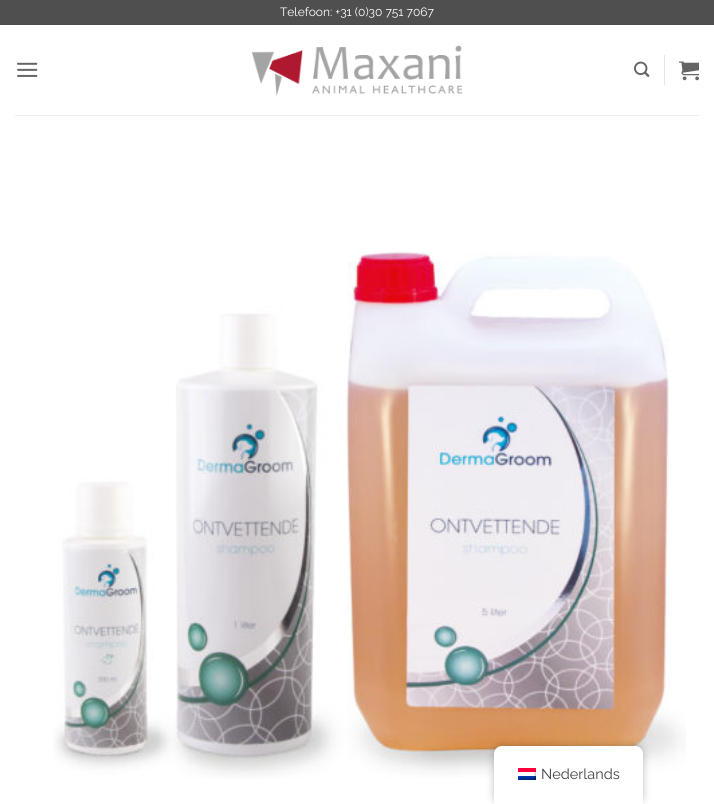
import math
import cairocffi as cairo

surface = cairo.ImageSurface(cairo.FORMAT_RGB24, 714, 804)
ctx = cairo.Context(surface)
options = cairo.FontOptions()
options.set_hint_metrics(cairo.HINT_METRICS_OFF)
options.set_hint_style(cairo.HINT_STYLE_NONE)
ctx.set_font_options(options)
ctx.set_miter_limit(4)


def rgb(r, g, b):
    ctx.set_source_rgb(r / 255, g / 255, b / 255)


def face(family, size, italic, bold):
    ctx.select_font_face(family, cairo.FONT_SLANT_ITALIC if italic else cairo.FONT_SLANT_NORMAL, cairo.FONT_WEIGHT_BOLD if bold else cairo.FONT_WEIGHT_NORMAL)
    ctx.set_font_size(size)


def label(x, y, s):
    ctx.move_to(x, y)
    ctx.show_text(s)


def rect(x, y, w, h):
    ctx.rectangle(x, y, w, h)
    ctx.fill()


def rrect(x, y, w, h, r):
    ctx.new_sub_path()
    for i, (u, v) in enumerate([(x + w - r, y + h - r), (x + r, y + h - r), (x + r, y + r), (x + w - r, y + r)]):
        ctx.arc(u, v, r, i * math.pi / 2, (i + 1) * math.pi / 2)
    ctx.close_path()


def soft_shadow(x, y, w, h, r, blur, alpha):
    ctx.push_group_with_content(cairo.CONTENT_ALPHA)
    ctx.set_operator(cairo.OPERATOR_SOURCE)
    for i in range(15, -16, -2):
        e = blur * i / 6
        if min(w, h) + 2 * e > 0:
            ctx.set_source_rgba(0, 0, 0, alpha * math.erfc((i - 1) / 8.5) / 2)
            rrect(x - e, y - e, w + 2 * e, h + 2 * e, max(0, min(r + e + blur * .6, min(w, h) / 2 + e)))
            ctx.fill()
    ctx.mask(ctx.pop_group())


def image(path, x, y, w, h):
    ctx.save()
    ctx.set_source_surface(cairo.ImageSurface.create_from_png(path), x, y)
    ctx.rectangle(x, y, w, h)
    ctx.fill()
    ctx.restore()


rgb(255, 255, 255)
ctx.paint()
rgb(79, 79, 79)
rect(0, 0, 714, 25)
face('Raleway', 12, 0, 0)
rgb(255, 255, 255)
label(280, 16, 'Telefoon: +31 (0)30 751 7067')
image('image0.png', 17, 62, 21, 15)
image('image1.png', 252, 45, 211, 51)
image('image2.png', 634, 61, 16, 16)
rgb(230, 230, 230)
rect(664, 55, 1, 30)
image('image3.png', 679, 61, 20, 20)
rgb(237, 237, 237)
rect(15, 115, 684, 1)
image('image4.png', 53, 251, 633, 528)
rgb(0, 0, 0)
soft_shadow(494, 746, 149, 58, 8, 4, 0.25)
rgb(255, 255, 255)
ctx.new_path()
ctx.move_to(502, 746)
ctx.line_to(635, 746)
ctx.curve_to(639.5, 746, 643, 749.5, 643, 754)
ctx.line_to(643, 804)
ctx.line_to(494, 804)
ctx.line_to(494, 754)
ctx.curve_to(494, 749.5, 497.5, 746, 502, 746)
ctx.close_path()
ctx.fill()
image('image5.png', 518, 768, 18, 12)
face('Raleway', 14.5, 0, 0)
rgb(64, 64, 64)
label(541, 779, 'Nederlands')
surface.write_to_png('render.png')
